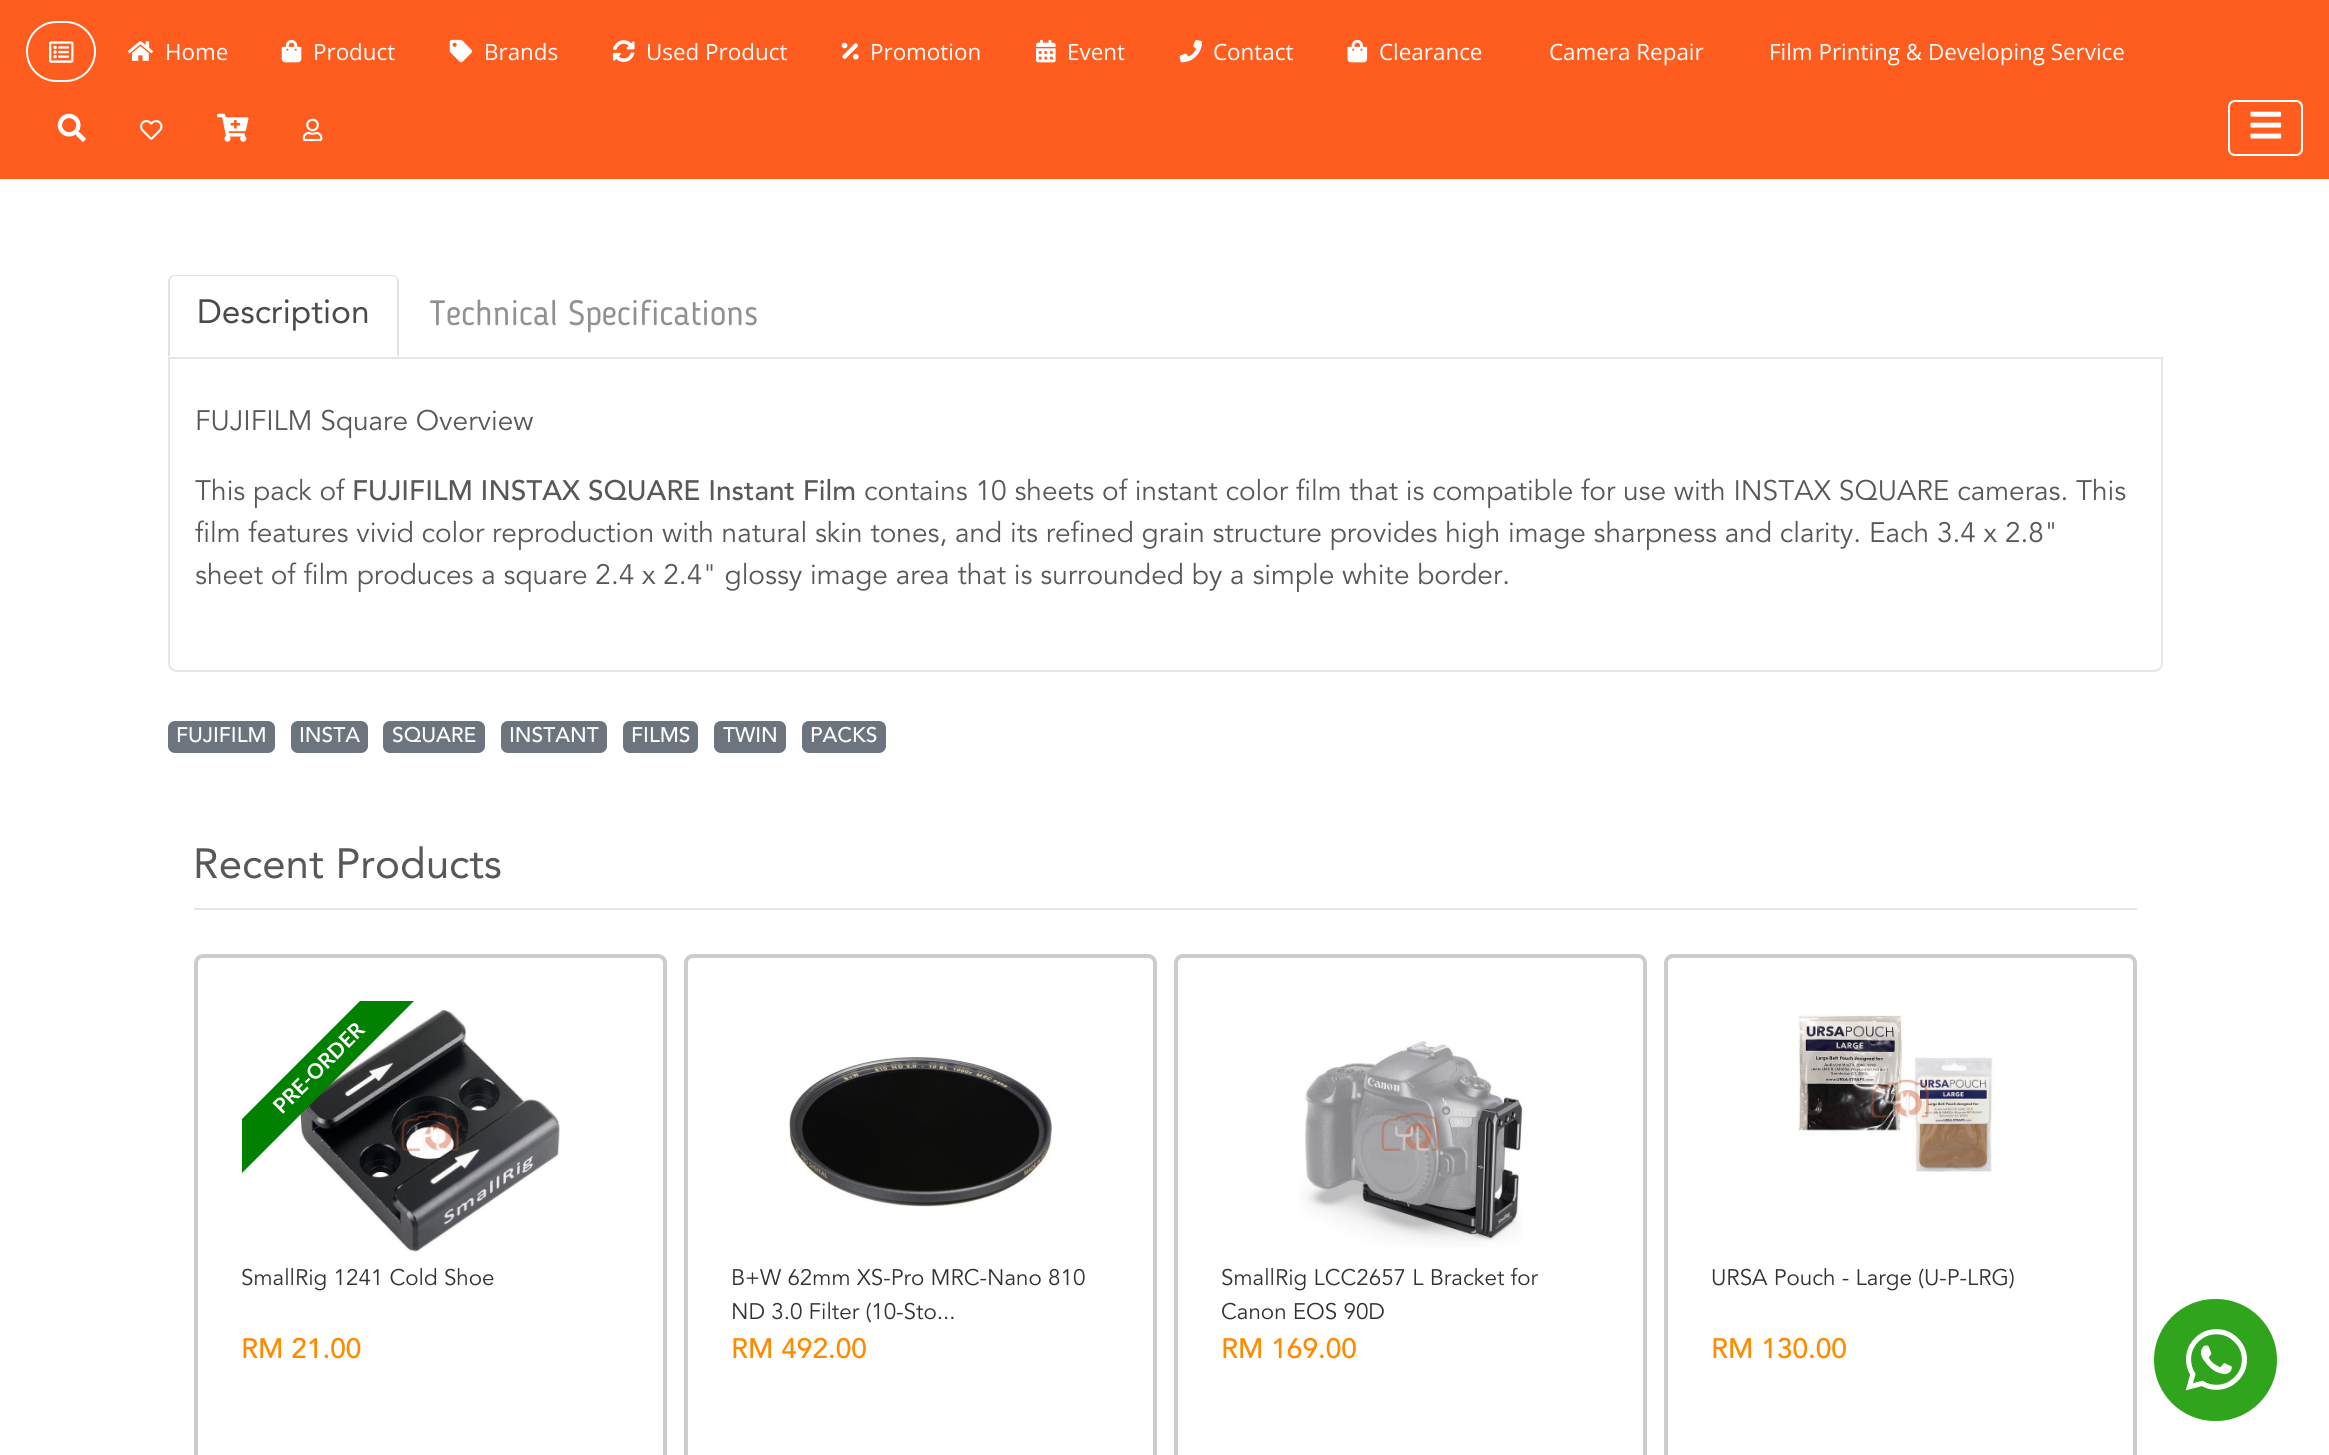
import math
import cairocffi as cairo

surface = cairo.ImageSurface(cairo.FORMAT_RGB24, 2329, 1455)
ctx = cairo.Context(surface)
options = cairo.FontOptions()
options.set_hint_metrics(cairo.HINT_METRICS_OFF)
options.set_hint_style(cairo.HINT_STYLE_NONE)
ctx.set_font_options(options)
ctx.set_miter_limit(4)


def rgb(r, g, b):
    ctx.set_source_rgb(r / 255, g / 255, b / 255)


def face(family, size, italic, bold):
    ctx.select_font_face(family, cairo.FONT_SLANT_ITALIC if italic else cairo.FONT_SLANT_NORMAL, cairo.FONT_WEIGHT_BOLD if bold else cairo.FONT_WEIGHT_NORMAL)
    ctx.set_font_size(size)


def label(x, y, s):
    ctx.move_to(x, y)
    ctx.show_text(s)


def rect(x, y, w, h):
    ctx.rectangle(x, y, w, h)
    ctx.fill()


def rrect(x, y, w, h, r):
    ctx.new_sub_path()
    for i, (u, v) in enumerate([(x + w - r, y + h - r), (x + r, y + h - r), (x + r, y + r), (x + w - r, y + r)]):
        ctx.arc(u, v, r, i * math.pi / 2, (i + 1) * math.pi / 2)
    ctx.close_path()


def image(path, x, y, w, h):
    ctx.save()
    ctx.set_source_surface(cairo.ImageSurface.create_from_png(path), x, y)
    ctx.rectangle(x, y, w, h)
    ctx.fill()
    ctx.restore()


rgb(255, 255, 255)
ctx.paint()
rgb(255, 93, 31)
rect(0, 0, 2329, 179)
rrect(27, 22, 68, 59, 29.5)
rgb(255, 255, 255)
ctx.stroke()
image('image0.png', 49, 41, 25, 22)
image('image1.png', 127, 41, 26, 20)
face('Open Sans', 22.4, 0, 0)
label(165, 60, 'Home')
image('image2.png', 281, 39, 21, 24)
label(313, 60, 'Product')
image('image3.png', 449, 39, 24, 24)
label(484, 60, 'Brands')
image('image4.png', 612, 40, 23, 22)
label(646, 60, 'Used Product')
image('image5.png', 841, 42, 18, 18)
label(870, 60, 'Promotion')
image('image6.png', 1036, 39, 20, 24)
label(1067, 60, 'Event')
image('image7.png', 1179, 39, 23, 24)
label(1213, 60, 'Contact')
image('image8.png', 1347, 39, 21, 24)
label(1379, 60, 'Clearance')
label(1549, 60, 'Camera Repair')
label(1769, 60, 'Film Printing & Developing Service')
image('image9.png', 57, 113, 29, 29)
image('image10.png', 140, 120, 23, 20)
image('image11.png', 217, 113, 32, 29)
image('image12.png', 302, 118, 21, 24)
rrect(2229, 101, 73, 54, 6)
ctx.stroke()
image('image13.png', 2250, 111, 32, 28)
rgb(222, 226, 230)
ctx.new_path()
ctx.move_to(175, 275)
ctx.curve_to(173, 275, 171, 276, 170, 277)
ctx.line_to(171, 278)
ctx.line_to(174, 276)
ctx.line_to(392, 276)
ctx.curve_to(394, 276, 395, 277, 396, 278)
ctx.line_to(397, 277)
ctx.curve_to(396, 276, 394, 275, 392, 275)
ctx.close_path()
ctx.fill()
ctx.new_path()
ctx.move_to(397, 277)
ctx.curve_to(398, 278, 399, 280, 399, 282)
ctx.line_to(399, 357)
ctx.line_to(397, 355)
ctx.line_to(397, 282)
ctx.curve_to(397, 281, 397, 279, 396, 278)
ctx.close_path()
ctx.fill()
ctx.new_path()
ctx.move_to(168, 357)
ctx.line_to(170, 355)
ctx.line_to(170, 282)
ctx.curve_to(170, 281, 170, 279, 171, 278)
ctx.line_to(170, 277)
ctx.curve_to(169, 278, 168, 280, 168, 282)
ctx.close_path()
ctx.fill()
face('Avenir', 33.5, 0, 0)
rgb(74, 74, 74)
label(197, 323, 'Description')
face('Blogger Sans', 35, 0, 0)
rgb(145, 145, 145)
label(429, 325, 'Technical Specifications')
ctx.new_path()
ctx.move_to(169, 358)
ctx.line_to(2162, 358)
ctx.line_to(2162, 663)
ctx.curve_to(2162, 667.5, 2158.5, 671, 2154, 671)
ctx.line_to(177, 671)
ctx.curve_to(172.5, 671, 169, 667.5, 169, 663)
ctx.close_path()
rgb(230, 230, 230)
ctx.stroke()
face('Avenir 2', 28, 0, 0)
rgb(88, 88, 88)
label(195, 430, 'FUJIFILM Square Overview')
label(195, 500, 'This pack of')
face('Avenir Medium', 28, 0, 0)
label(352, 500, 'FUJIFILM INSTAX SQUARE Instant Film')
face('Avenir 2', 28, 0, 0)
label(864, 500, 'contains 10 sheets of instant color film that is compatible for use with INSTAX SQUARE cameras. This')
label(195, 542, 'film features vivid color reproduction with natural skin tones, and its refined grain structure provides high image sharpness and clarity. Each 3.4 x 2.8"')
label(195, 584, 'sheet of film produces a square 2.4 x 2.4" glossy image area that is surrounded by a simple white border.')
rgb(108, 117, 125)
rrect(168, 721, 107, 32, 7)
ctx.fill()
face('Avenir Medium', 21, 0, 0)
rgb(255, 255, 255)
label(176, 742, 'FUJIFILM')
rgb(108, 117, 125)
rrect(291, 721, 77, 32, 7)
ctx.fill()
rgb(255, 255, 255)
label(299, 742, 'INSTA')
rgb(108, 117, 125)
rrect(383, 721, 102, 32, 7)
ctx.fill()
rgb(255, 255, 255)
label(392, 742, 'SQUARE')
rgb(108, 117, 125)
rrect(501, 721, 106, 32, 7)
ctx.fill()
rgb(255, 255, 255)
label(509, 742, 'INSTANT')
rgb(108, 117, 125)
rrect(623, 721, 75, 32, 7)
ctx.fill()
rgb(255, 255, 255)
label(631, 742, 'FILMS')
rgb(108, 117, 125)
rrect(714, 721, 72, 32, 7)
ctx.fill()
rgb(255, 255, 255)
label(723, 742, 'TWIN')
rgb(108, 117, 125)
rrect(802, 721, 84, 32, 7)
ctx.fill()
rgb(255, 255, 255)
label(810, 742, 'PACKS')
rgb(230, 230, 230)
rect(194, 908, 1943, 2)
face('Avenir', 42, 0, 0)
rgb(88, 88, 88)
label(193, 878, 'Recent Products')
rrect(196, 956, 469, 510, 7)
rgb(204, 204, 204)
ctx.set_line_width(4)
ctx.stroke()
image('image14.png', 299, 1009, 261, 243)
ctx.save()
ctx.rectangle(242, 1001, 175, 175)
ctx.clip()
rgb(2, 128, 0)
ctx.new_path()
ctx.move_to(201, 1160)
ctx.line_to(411, 950)
ctx.line_to(438, 977)
ctx.line_to(228, 1187)
ctx.close_path()
ctx.fill()
ctx.restore()
face('Lato', 21, 0, 1)
rgb(255, 255, 255)
ctx.save()
ctx.translate(282, 1115)
ctx.rotate(-45 * math.pi / 180)
label(0, 0, 'PRE-ORDER')
ctx.restore()
face('Avenir 2', 22.4, 0, 0)
rgb(51, 51, 51)
label(241, 1285, 'SmallRig 1241 Cold Shoe')
face('Avenir Medium', 28, 0, 0)
rgb(255, 138, 0)
label(241, 1358, 'RM 21.00')
rrect(686, 956, 469, 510, 7)
rgb(204, 204, 204)
ctx.stroke()
image('image15.png', 789, 1056, 263, 151)
face('Avenir 2', 22.4, 0, 0)
rgb(51, 51, 51)
label(731, 1285, 'B+W 62mm XS-Pro MRC-Nano 810')
label(731, 1319, 'ND 3.0 Filter (10-Sto...')
face('Avenir Medium', 28, 0, 0)
rgb(255, 138, 0)
label(731, 1358, 'RM 492.00')
rrect(1176, 956, 469, 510, 7)
rgb(204, 204, 204)
ctx.stroke()
image('image16.png', 1300, 1040, 223, 208)
face('Avenir 2', 22.4, 0, 0)
rgb(51, 51, 51)
label(1221, 1285, 'SmallRig LCC2657 L Bracket for')
label(1221, 1319, 'Canon EOS 90D')
face('Avenir Medium', 28, 0, 0)
rgb(255, 138, 0)
label(1221, 1358, 'RM 169.00')
rrect(1666, 956, 469, 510, 7)
rgb(204, 204, 204)
ctx.stroke()
image('image17.png', 1798, 1015, 195, 157)
face('Avenir 2', 22.4, 0, 0)
rgb(51, 51, 51)
label(1711, 1285, 'URSA Pouch - Large (U-P-LRG)')
face('Avenir Medium', 28, 0, 0)
rgb(255, 138, 0)
label(1711, 1358, 'RM 130.00')
rgb(48, 164, 28)
rrect(2154, 1299, 123, 122, 61)
ctx.fill()
image('image18.png', 2185, 1329, 62, 62)
surface.write_to_png('render.png')
